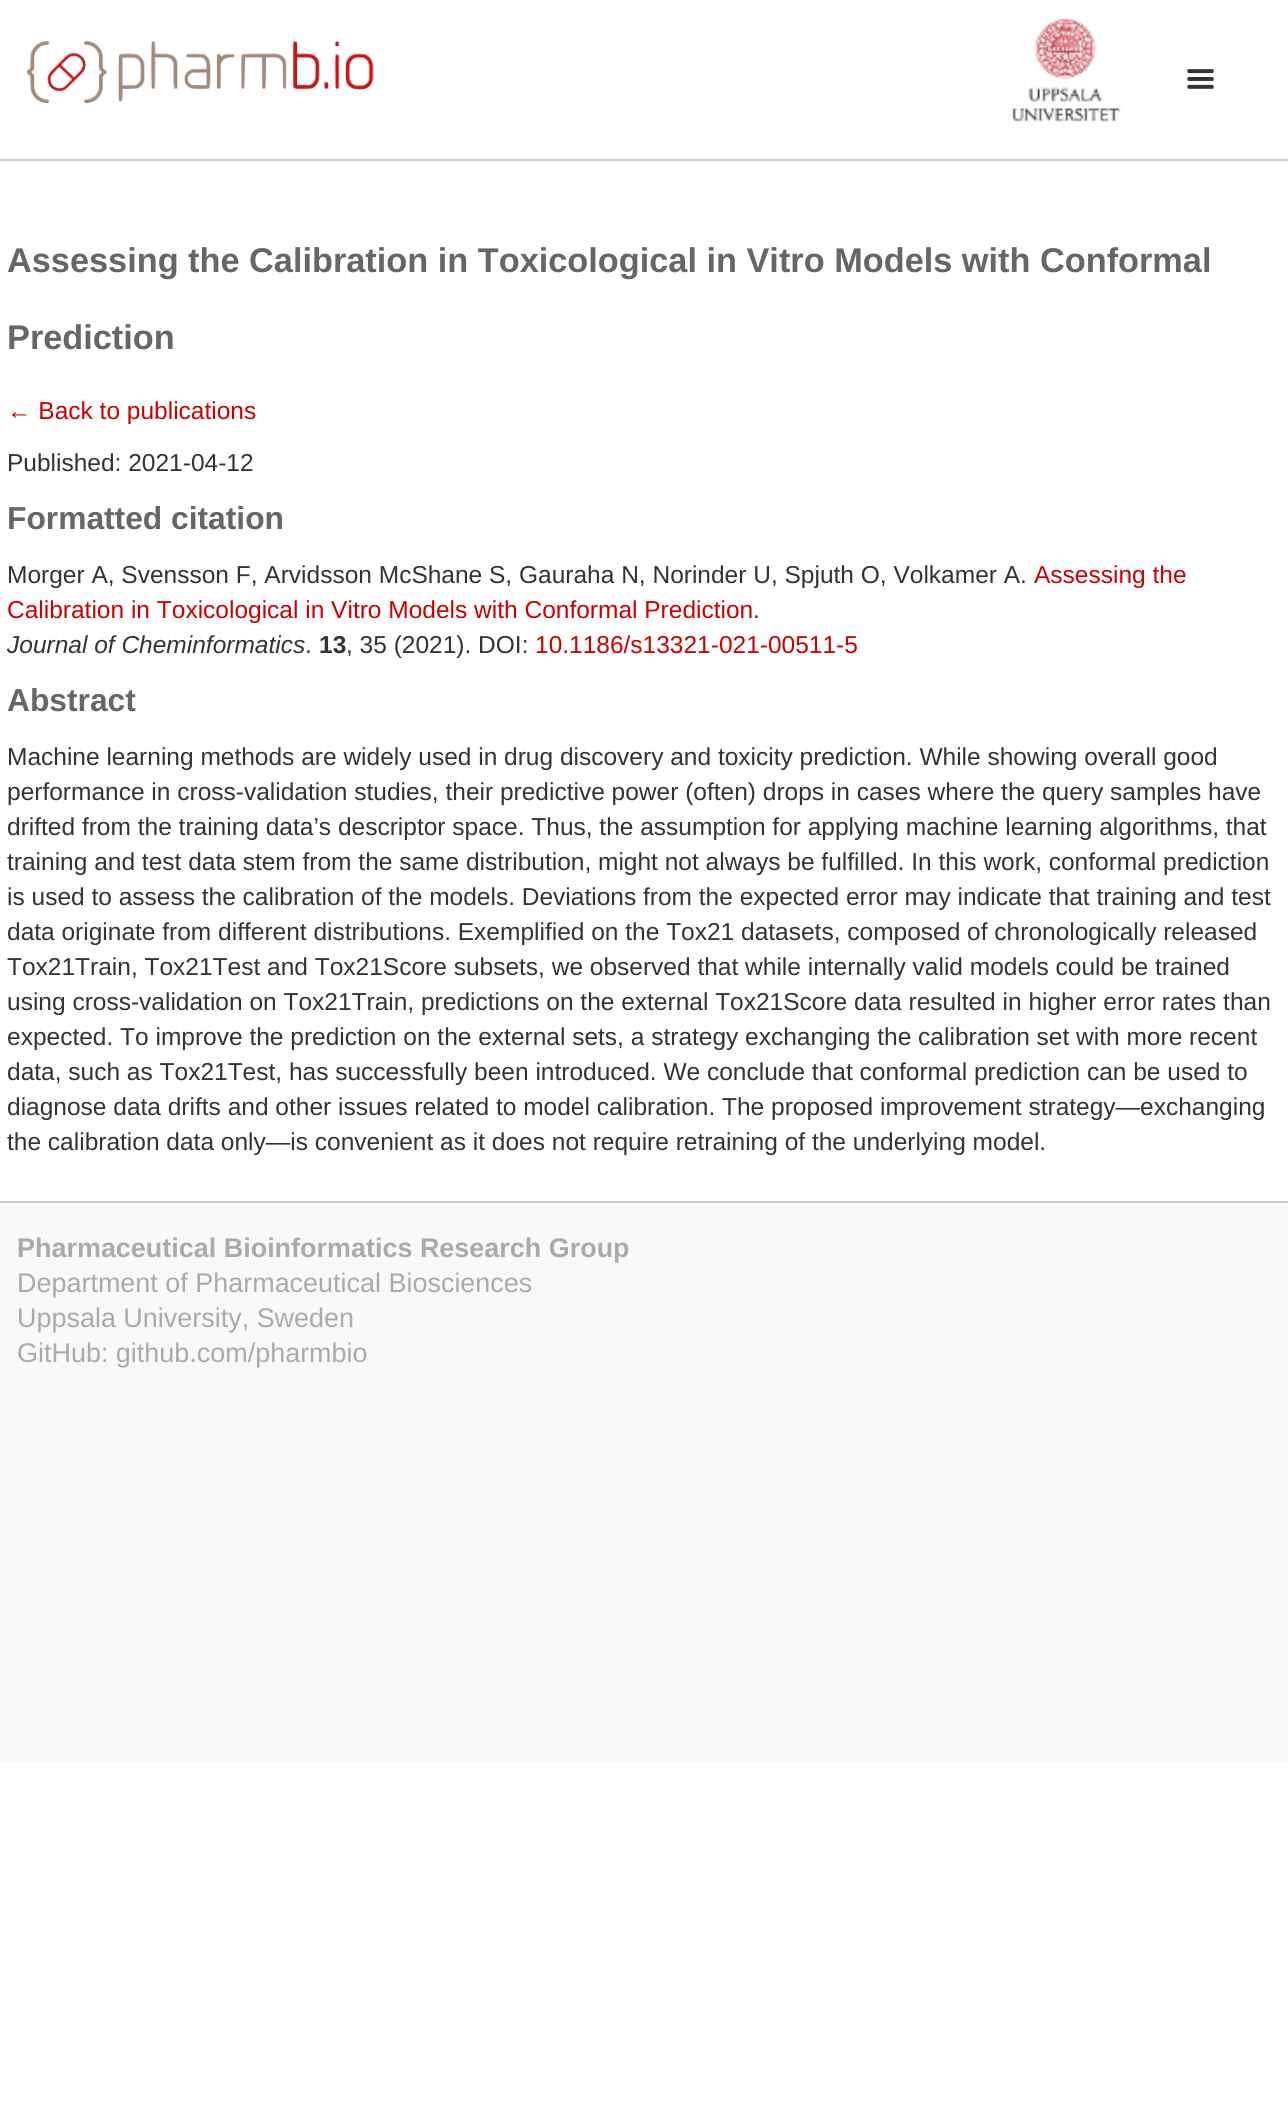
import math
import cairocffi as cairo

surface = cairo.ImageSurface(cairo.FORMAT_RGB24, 1288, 2115)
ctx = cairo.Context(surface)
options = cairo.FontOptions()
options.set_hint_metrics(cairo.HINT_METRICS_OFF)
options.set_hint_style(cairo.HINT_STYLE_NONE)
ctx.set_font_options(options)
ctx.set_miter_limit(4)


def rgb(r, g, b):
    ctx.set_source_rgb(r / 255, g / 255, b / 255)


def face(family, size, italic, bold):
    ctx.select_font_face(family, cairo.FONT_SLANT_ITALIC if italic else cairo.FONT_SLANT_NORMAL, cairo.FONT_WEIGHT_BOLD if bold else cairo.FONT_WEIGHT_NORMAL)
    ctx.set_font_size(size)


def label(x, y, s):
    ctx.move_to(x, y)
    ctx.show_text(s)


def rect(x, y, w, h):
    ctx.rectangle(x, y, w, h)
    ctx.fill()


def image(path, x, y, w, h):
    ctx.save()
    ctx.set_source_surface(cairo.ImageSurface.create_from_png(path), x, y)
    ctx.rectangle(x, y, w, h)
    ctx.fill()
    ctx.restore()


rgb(255, 255, 255)
ctx.paint()
rgb(204, 204, 204)
rect(0, 159, 1288, 2)
image('image0.png', 26, 40, 348, 64)
image('image1.png', 1011, 18, 110, 104)
image('image2.png', 1187, 69, 27, 20)
face('Liberation Sans', 34.3, 0, 1)
rgb(102, 102, 102)
label(7, 272, 'Assessing the Calibration in Toxicological in Vitro Models with Conformal')
label(7, 349, 'Prediction')
face('Liberation Sans', 24.5, 0, 0)
rgb(204, 0, 0)
label(7, 419, '← Back to publications')
rgb(51, 51, 51)
label(7, 471, 'Published: 2021-04-12')
face('Liberation Sans', 31.75, 0, 1)
rgb(102, 102, 102)
label(7, 529, 'Formatted citation')
face('Liberation Sans', 24.5, 0, 0)
rgb(51, 51, 51)
label(7, 583, 'Morger A, Svensson F, Arvidsson McShane S, Gauraha N, Norinder U, Spjuth O, Volkamer A.')
rgb(204, 0, 0)
label(1034, 583, 'Assessing the')
label(7, 618, 'Calibration in Toxicological in Vitro Models with Conformal Prediction')
rgb(51, 51, 51)
label(753, 618, '.')
face('Liberation Sans', 24.5, 1, 0)
label(7, 653, 'Journal of Cheminformatics')
face('Liberation Sans', 24.5, 0, 0)
label(305, 653, '.')
face('Liberation Sans', 24.5, 0, 1)
label(319, 653, '13')
face('Liberation Sans', 24.5, 0, 0)
label(346, 653, ', 35 (2021). DOI:')
rgb(204, 0, 0)
label(535, 653, '10.1186/s13321-021-00511-5')
face('Liberation Sans', 31.75, 0, 1)
rgb(102, 102, 102)
label(7, 711, 'Abstract')
face('Liberation Sans', 24.5, 0, 0)
rgb(51, 51, 51)
label(7, 765, 'Machine learning methods are widely used in drug discovery and toxicity prediction. While showing overall good')
label(7, 800, 'performance in cross-validation studies, their predictive power (often) drops in cases where the query samples have')
label(7, 835, 'drifted from the training data’s descriptor space. Thus, the assumption for applying machine learning algorithms, that')
label(7, 870, 'training and test data stem from the same distribution, might not always be fulfilled. In this work, conformal prediction')
label(7, 905, 'is used to assess the calibration of the models. Deviations from the expected error may indicate that training and test')
label(7, 940, 'data originate from different distributions. Exemplified on the Tox21 datasets, composed of chronologically released')
label(7, 975, 'Tox21Train, Tox21Test and Tox21Score subsets, we observed that while internally valid models could be trained')
label(7, 1010, 'using cross-validation on Tox21Train, predictions on the external Tox21Score data resulted in higher error rates than')
label(7, 1045, 'expected. To improve the prediction on the external sets, a strategy exchanging the calibration set with more recent')
label(7, 1080, 'data, such as Tox21Test, has successfully been introduced. We conclude that conformal prediction can be used to')
label(7, 1115, 'diagnose data drifts and other issues related to model calibration. The proposed improvement strategy—exchanging')
label(7, 1150, 'the calibration data only—is convenient as it does not require retraining of the underlying model.')
rgb(249, 249, 249)
rect(0, 1203, 1288, 559)
rgb(204, 204, 204)
rect(0, 1201, 1288, 2)
face('Liberation Sans', 26.95, 0, 1)
rgb(170, 170, 170)
label(17, 1257, 'Pharmaceutical Bioinformatics Research Group')
face('Liberation Sans', 26.95, 0, 0)
label(17, 1292, 'Department of Pharmaceutical Biosciences')
label(17, 1327, 'Uppsala University, Sweden')
label(17, 1362, 'GitHub: github.com/pharmbio')
surface.write_to_png('render.png')
